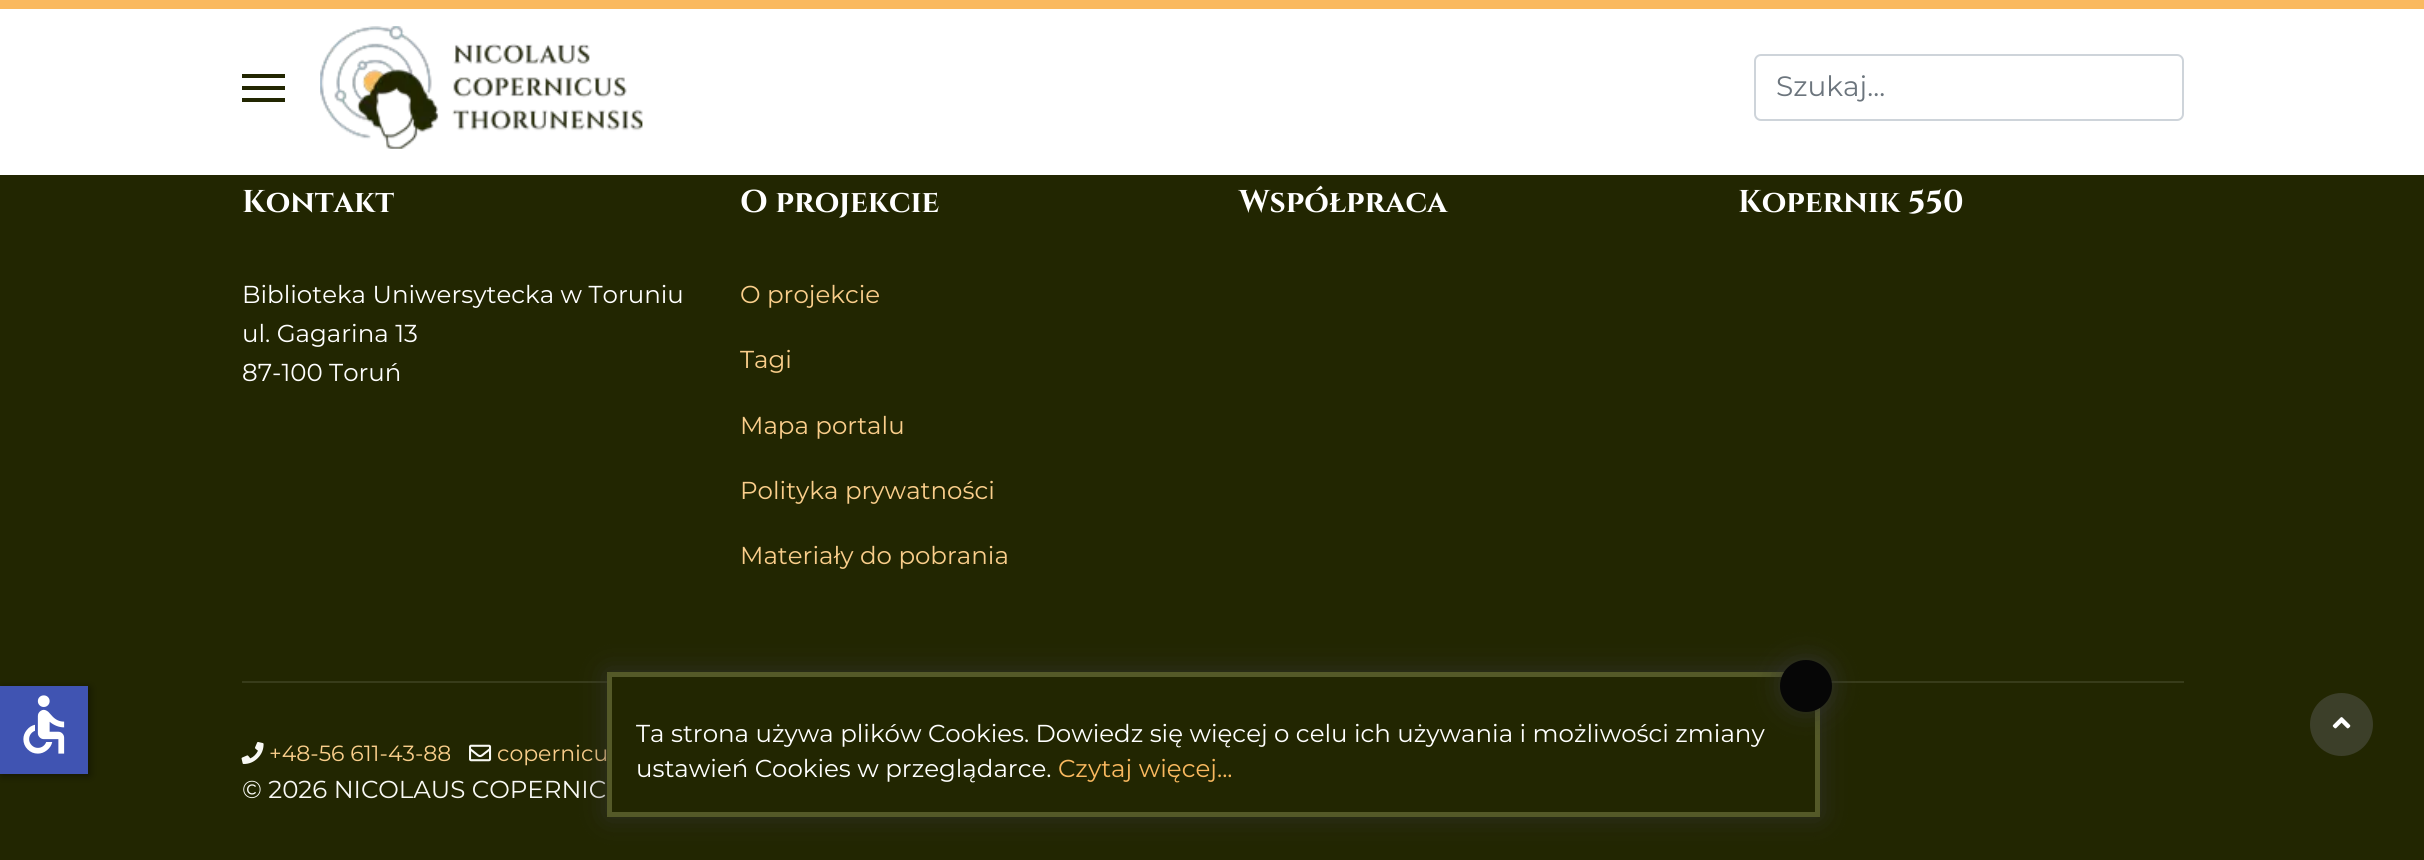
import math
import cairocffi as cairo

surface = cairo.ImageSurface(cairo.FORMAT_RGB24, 2424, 860)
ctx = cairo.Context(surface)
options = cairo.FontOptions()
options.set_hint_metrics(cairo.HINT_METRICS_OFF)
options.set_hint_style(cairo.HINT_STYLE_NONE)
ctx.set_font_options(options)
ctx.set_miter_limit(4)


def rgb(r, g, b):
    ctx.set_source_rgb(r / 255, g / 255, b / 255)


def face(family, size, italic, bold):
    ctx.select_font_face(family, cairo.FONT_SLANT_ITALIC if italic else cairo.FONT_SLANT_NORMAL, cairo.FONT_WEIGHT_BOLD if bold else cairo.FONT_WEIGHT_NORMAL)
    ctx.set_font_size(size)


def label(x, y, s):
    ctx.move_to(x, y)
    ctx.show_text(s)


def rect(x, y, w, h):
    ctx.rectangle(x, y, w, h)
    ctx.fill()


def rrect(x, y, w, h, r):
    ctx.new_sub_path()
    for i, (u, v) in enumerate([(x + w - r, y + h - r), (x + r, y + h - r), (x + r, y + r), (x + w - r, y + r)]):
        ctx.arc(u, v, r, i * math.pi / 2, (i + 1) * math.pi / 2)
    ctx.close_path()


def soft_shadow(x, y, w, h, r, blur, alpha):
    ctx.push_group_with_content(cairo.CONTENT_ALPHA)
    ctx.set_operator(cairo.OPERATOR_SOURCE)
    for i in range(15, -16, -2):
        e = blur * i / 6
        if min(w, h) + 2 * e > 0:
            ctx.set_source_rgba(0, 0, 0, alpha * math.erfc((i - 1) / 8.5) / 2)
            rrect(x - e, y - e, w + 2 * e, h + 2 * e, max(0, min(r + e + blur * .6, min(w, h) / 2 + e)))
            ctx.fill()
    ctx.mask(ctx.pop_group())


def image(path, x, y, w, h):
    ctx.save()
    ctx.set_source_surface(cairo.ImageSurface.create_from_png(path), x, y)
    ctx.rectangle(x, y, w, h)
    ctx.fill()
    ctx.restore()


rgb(34, 38, 1)
ctx.paint()
rgb(250, 185, 95)
rect(0, 0, 2424, 9)
rgb(0, 0, 0)
soft_shadow(2, 688, 87, 87, 0, 4.5, 0.5)
rgb(64, 84, 178)
rect(0, 686, 88, 88)
image('image0.png', 23, 695, 42, 59)
rgb(255, 255, 255)
rect(0, 9, 2424, 166)
rgb(34, 38, 1)
rect(242, 74, 43, 4)
rect(242, 86, 43, 4)
rect(242, 98, 43, 4)
image('image1.png', 320, 26, 323, 123)
rrect(1755, 55, 428, 65, 6)
rgb(206, 212, 218)
ctx.stroke()
face('Montserrat', 28, 0, 0)
rgb(108, 117, 125)
label(1776, 96, 'Szukaj...')
face('Cinzel', 31.5, 0, 1)
rgb(255, 255, 255)
label(242, 212, 'Kontakt')
face('Montserrat', 24.5, 0, 0)
label(242, 303, 'Biblioteka Uniwersytecka w Toruniu')
label(242, 342, 'ul. Gagarina 13')
label(242, 381, '87-100 Toruń')
face('Cinzel', 31.5, 0, 1)
label(740, 212, 'O projekcie')
face('Montserrat', 24.5, 0, 0)
rgb(250, 206, 139)
label(740, 303, 'O projekcie')
label(740, 368, 'Tagi')
label(740, 434, 'Mapa portalu')
label(740, 499, 'Polityka prywatności')
label(740, 564, 'Materiały do pobrania')
face('Cinzel', 31.5, 0, 1)
rgb(255, 255, 255)
label(1239, 212, 'Współpraca')
label(1738, 212, 'Kopernik 550')
rgb(56, 60, 26)
rect(242, 681, 1942, 2)
image('image2.png', 241, 742, 23, 22)
face('Montserrat', 22, 0, 0)
rgb(250, 206, 139)
label(269, 761, '+48-56 611-43-88')
image('image3.png', 469, 744, 23, 18)
label(497, 761, 'copernicu')
face('Montserrat', 24.5, 0, 0)
rgb(249, 249, 245)
label(242, 798, '© 2026 NICOLAUS COPERNIC')
rgb(60, 63, 41)
ctx.new_path()
ctx.arc(2341.5, 724.5, 31.5, 0, 2 * math.pi)
ctx.fill()
image('image4.png', 2332, 717, 19, 12)
rgb(50, 50, 50)
soft_shadow(607, 672, 1213, 145, 0, 13, 0.75)
rgb(34, 38, 1)
ctx.rectangle(609.5, 674.5, 1208, 140)
ctx.fill_preserve()
rgb(84, 89, 40)
ctx.set_line_width(5)
ctx.stroke()
rgb(255, 255, 255)
label(636, 742, 'Ta strona używa plików Cookies. Dowiedz się więcej o celu ich używania i możliwości zmiany')
label(636, 777, 'ustawień Cookies w przeglądarce.')
rgb(250, 185, 95)
label(1058, 777, 'Czytaj więcej...')
rgb(50, 50, 50)
soft_shadow(1780, 660, 52, 52, 26, 13, 0.75)
rgb(6, 6, 6)
ctx.arc(1806, 686, 26, 0, 2 * math.pi)
ctx.fill()
surface.write_to_png('render.png')
